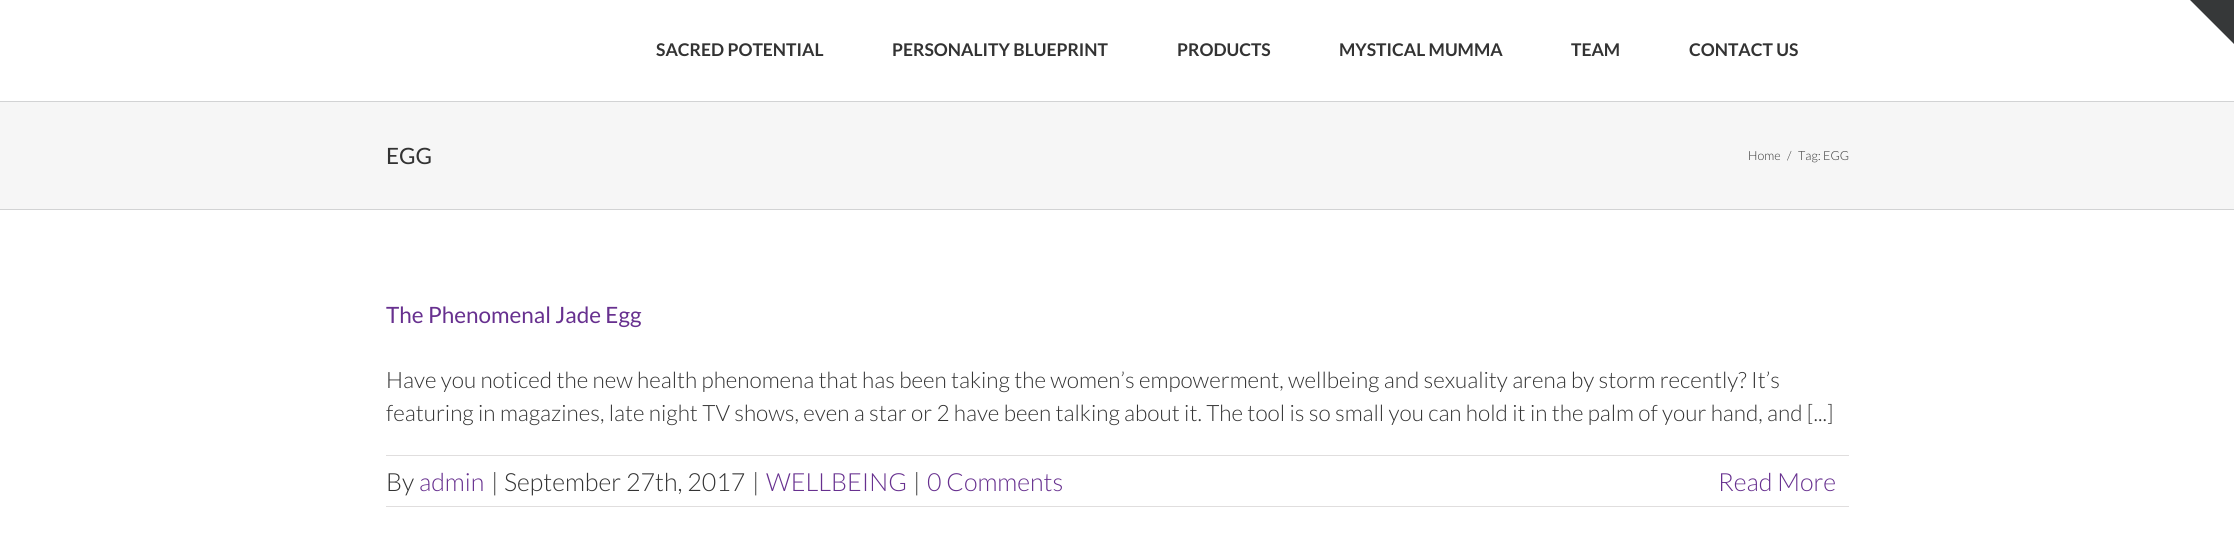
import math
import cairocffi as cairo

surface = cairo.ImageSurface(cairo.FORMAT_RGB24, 2234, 558)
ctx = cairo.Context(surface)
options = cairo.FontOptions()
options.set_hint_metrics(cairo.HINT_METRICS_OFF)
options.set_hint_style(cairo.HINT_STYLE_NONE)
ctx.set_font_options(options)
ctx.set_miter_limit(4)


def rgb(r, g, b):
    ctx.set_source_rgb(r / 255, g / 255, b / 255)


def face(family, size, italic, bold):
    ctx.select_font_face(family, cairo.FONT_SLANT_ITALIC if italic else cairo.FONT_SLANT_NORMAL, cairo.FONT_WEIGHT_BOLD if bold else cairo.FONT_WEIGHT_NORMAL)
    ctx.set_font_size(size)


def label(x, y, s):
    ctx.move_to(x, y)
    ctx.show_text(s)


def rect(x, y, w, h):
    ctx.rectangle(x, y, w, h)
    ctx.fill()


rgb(255, 255, 255)
ctx.paint()
rgb(54, 56, 57)
ctx.new_path()
ctx.move_to(2190, 0)
ctx.line_to(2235, 0)
ctx.line_to(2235, 45)
ctx.close_path()
ctx.fill()
face('Lato', 17.5, 0, 1)
rgb(51, 51, 51)
label(656, 56, 'SACRED POTENTIAL')
label(892, 56, 'PERSONALITY BLUEPRINT')
label(1177, 56, 'PRODUCTS')
label(1339, 56, 'MYSTICAL MUMMA')
label(1571, 56, 'TEAM')
label(1689, 56, 'CONTACT US')
rgb(246, 246, 246)
rect(0, 102, 2234, 107)
rgb(210, 211, 212)
rect(0, 101, 2234, 1)
rect(0, 209, 2234, 1)
face('Lato', 22.5, 0, 0)
rgb(51, 51, 51)
label(386, 164, 'EGG')
face('Lato Light', 12.5, 0, 0)
label(1748, 160, 'Home')
label(1787, 160, '/')
label(1798, 160, 'Tag: EGG')
face('Lato', 22.5, 0, 0)
rgb(103, 48, 143)
label(386, 323, 'The Phenomenal Jade Egg')
face('Lato Light', 22.5, 0, 0)
rgb(51, 51, 51)
label(386, 388, 'Have you noticed the new health phenomena that has been taking the women’s empowerment, wellbeing and sexuality arena by storm recently? It’s')
label(386, 421, 'featuring in magazines, late night TV shows, even a star or 2 have been talking about it. The tool is so small you can hold it in the palm of your hand, and [...]')
rgb(224, 222, 222)
rect(386, 455, 1463, 1)
rect(386, 506, 1463, 1)
face('Lato Light', 25, 0, 0)
rgb(51, 51, 51)
label(386, 491, 'By')
rgb(103, 48, 143)
label(419, 491, 'admin')
rgb(51, 51, 51)
label(491, 491, '|')
label(504, 491, 'September 27th, 2017')
label(752, 491, '|')
rgb(103, 48, 143)
label(766, 491, 'WELLBEING')
rgb(51, 51, 51)
label(913, 491, '|')
rgb(103, 48, 143)
label(927, 491, '0 Comments')
label(1718, 491, 'Read More')
surface.write_to_png('render.png')
